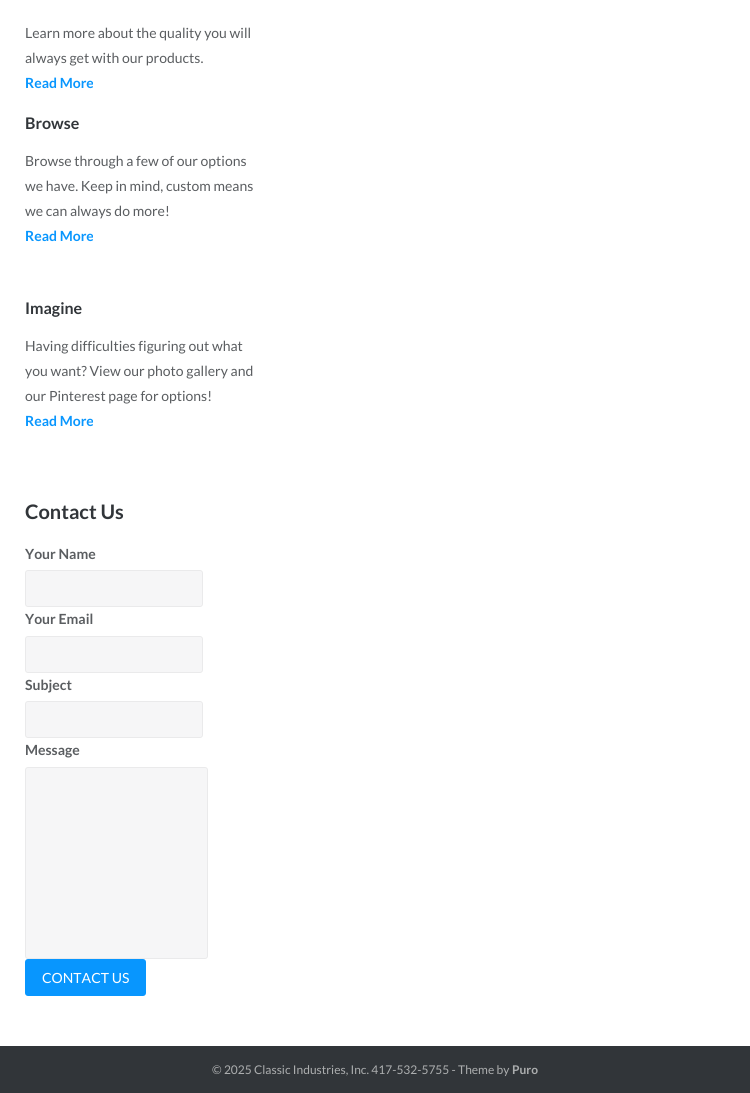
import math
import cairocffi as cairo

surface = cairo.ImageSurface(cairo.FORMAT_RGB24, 750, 1093)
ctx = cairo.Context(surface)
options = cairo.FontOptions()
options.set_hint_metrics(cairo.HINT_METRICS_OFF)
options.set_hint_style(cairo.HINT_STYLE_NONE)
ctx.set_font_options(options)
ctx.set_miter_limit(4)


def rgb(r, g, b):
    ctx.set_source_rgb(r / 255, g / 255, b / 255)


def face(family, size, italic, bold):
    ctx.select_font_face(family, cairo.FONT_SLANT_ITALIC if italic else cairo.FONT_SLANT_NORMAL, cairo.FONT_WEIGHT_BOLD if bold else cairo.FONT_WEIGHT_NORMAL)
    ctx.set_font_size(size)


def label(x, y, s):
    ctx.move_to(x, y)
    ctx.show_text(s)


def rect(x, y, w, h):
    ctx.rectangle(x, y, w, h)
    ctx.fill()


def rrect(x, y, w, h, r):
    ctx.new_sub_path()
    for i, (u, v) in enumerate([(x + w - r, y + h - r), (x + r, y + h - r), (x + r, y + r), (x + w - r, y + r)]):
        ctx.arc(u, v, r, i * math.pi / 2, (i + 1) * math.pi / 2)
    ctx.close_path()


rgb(255, 255, 255)
ctx.paint()
face('Lato', 14, 0, 0)
rgb(90, 93, 96)
label(25, 38, 'Learn more about the quality you will')
label(25, 63, 'always get with our products.')
face('Lato', 14, 0, 1)
rgb(8, 150, 254)
label(25, 88, 'Read More')
face('Lato', 16, 0, 1)
rgb(49, 53, 57)
label(25, 129, 'Browse')
face('Lato', 14, 0, 0)
rgb(90, 93, 96)
label(25, 166, 'Browse through a few of our options')
label(25, 191, 'we have. Keep in mind, custom means')
label(25, 216, 'we can always do more!')
face('Lato', 14, 0, 1)
rgb(8, 150, 254)
label(25, 241, 'Read More')
face('Lato', 16, 0, 1)
rgb(49, 53, 57)
label(25, 314, 'Imagine')
face('Lato', 14, 0, 0)
rgb(90, 93, 96)
label(25, 351, 'Having difficulties figuring out what')
label(25, 376, 'you want? View our photo gallery and')
label(25, 401, 'our Pinterest page for options!')
face('Lato', 14, 0, 1)
rgb(8, 150, 254)
label(25, 426, 'Read More')
face('Lato', 20, 0, 1)
rgb(49, 53, 57)
label(25, 519, 'Contact Us')
face('Lato', 14, 0, 1)
rgb(90, 93, 96)
label(25, 559, 'Your Name')
rgb(246, 246, 247)
rrect(25.5, 570.5, 177, 36, 2.5)
ctx.fill_preserve()
rgb(234, 234, 235)
ctx.set_line_width(1)
ctx.stroke()
rgb(90, 93, 96)
label(25, 624, 'Your Email')
rgb(246, 246, 247)
rrect(25.5, 636.5, 177, 36, 2.5)
ctx.fill_preserve()
rgb(234, 234, 235)
ctx.stroke()
rgb(90, 93, 96)
label(25, 690, 'Subject')
rgb(246, 246, 247)
rrect(25.5, 701.5, 177, 36, 2.5)
ctx.fill_preserve()
rgb(234, 234, 235)
ctx.stroke()
rgb(90, 93, 96)
label(25, 755, 'Message')
rgb(246, 246, 247)
rrect(25.5, 767.5, 182, 191, 2.5)
ctx.fill_preserve()
rgb(234, 234, 235)
ctx.stroke()
rgb(8, 150, 254)
rrect(25, 959, 121, 37, 3)
ctx.fill()
face('Lato', 14, 0, 0)
rgb(255, 255, 255)
label(42, 983, 'CONTACT US')
rgb(49, 53, 57)
rect(0, 1046, 750, 47)
face('Lato', 12, 0, 0)
rgb(172, 174, 175)
label(212, 1074, '© 2025 Classic Industries, Inc. 417-532-5755 - Theme by')
face('Lato', 12, 0, 1)
label(512, 1074, 'Puro')
surface.write_to_png('render.png')
